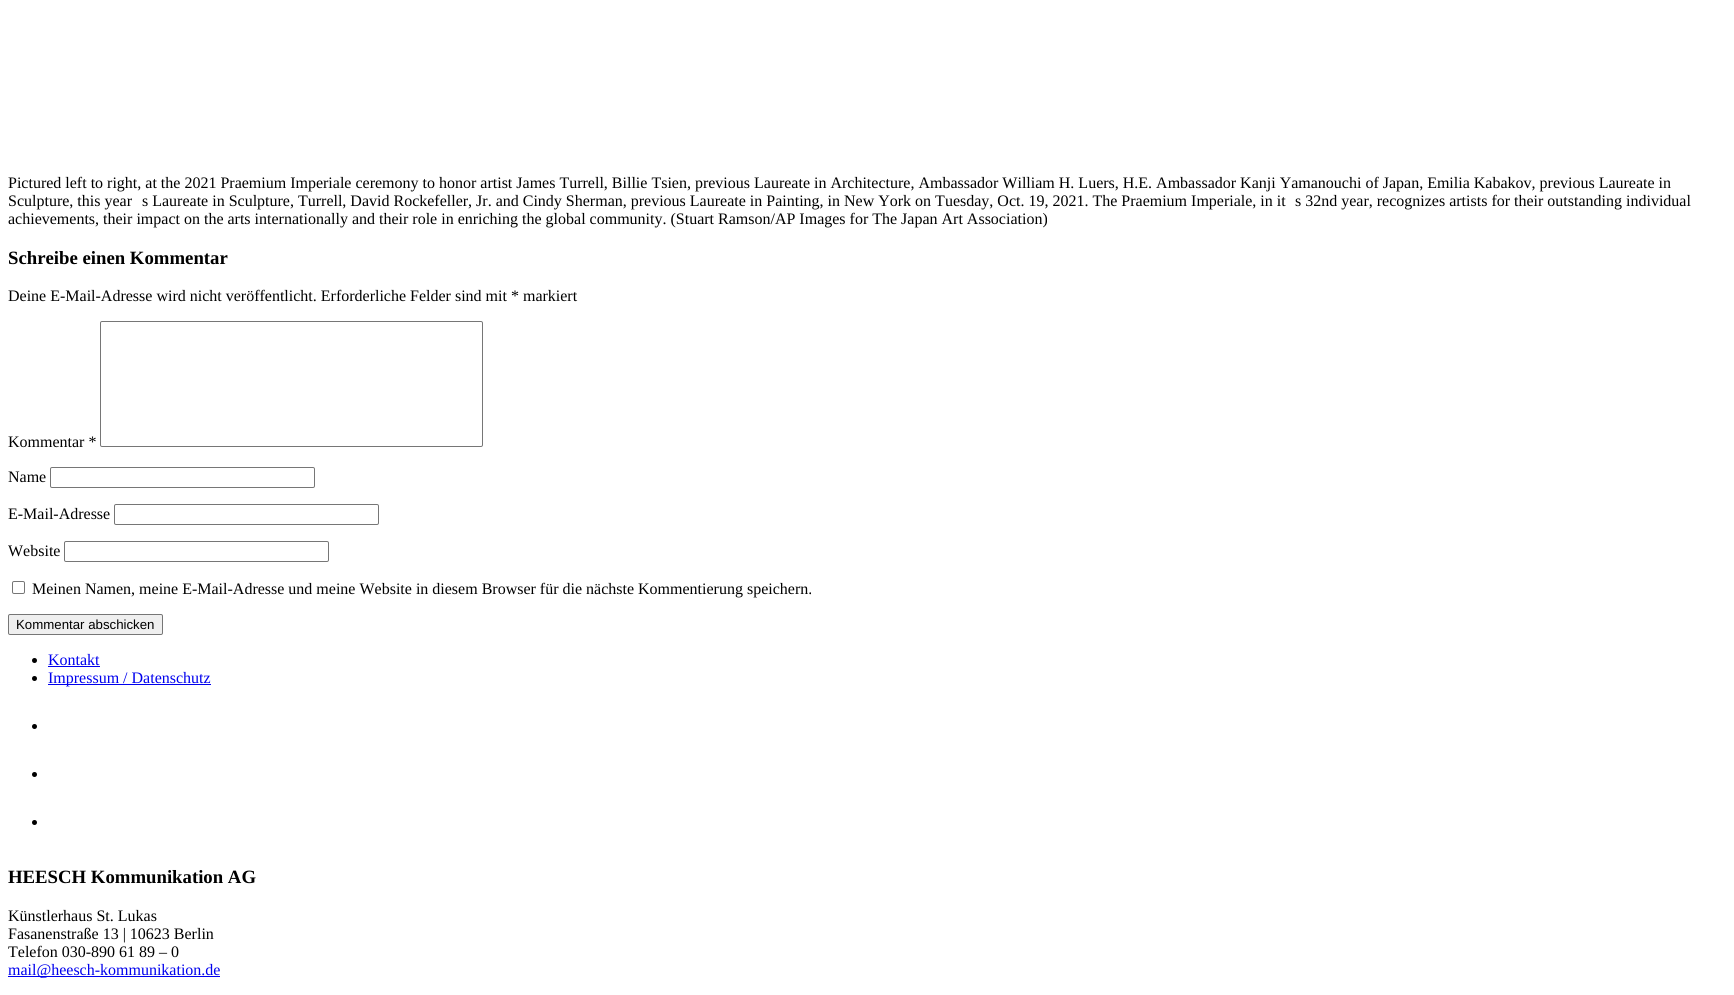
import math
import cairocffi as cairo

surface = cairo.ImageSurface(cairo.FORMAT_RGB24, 1734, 995)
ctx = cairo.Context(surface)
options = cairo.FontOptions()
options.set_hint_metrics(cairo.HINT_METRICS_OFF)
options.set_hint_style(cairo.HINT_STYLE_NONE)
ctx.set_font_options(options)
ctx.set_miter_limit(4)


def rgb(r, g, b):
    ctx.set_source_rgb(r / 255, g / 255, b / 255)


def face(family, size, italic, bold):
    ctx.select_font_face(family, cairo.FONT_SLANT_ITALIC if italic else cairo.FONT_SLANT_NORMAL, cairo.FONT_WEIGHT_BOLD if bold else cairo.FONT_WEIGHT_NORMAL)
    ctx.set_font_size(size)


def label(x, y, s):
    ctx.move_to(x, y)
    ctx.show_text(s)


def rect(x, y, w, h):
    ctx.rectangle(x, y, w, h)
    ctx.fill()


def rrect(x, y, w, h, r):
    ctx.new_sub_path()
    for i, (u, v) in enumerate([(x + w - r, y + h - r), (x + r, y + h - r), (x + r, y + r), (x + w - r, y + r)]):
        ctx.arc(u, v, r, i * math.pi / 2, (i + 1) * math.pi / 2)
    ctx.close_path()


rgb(255, 255, 255)
ctx.paint()
face('Liberation Serif', 16, 0, 0)
rgb(0, 0, 0)
label(8, 188, 'Pictured left to right, at the 2021 Praemium Imperiale ceremony to honor artist James Turrell, Billie Tsien, previous Laureate in Architecture, Ambassador William H. Luers, H.E. Ambassador Kanji Yamanouchi of Japan, Emilia Kabakov, previous Laureate in')
label(8, 206, 'Sculpture, this year')
label(142, 206, 's Laureate in Sculpture, Turrell, David Rockefeller, Jr. and Cindy Sherman, previous Laureate in Painting, in New York on Tuesday, Oct. 19, 2021. The Praemium Imperiale, in it')
label(1295, 206, 's 32nd year, recognizes artists for their outstanding individual')
label(8, 224, 'achievements, their impact on the arts internationally and their role in enriching the global community. (Stuart Ramson/AP Images for The Japan Art Association)')
face('Liberation Serif', 18.75, 0, 1)
label(8, 264, 'Schreibe einen Kommentar')
face('Liberation Serif', 16, 0, 0)
label(8, 301, 'Deine E-Mail-Adresse wird nicht veröffentlicht. Erforderliche Felder sind mit * markiert')
label(8, 447, 'Kommentar *')
rrect(100.5, 321.5, 382, 125, 1.5)
rgb(118, 118, 118)
ctx.set_line_width(1)
ctx.stroke()
rgb(0, 0, 0)
label(8, 482, 'Name')
rrect(50.5, 467.5, 264, 20, 1.5)
rgb(118, 118, 118)
ctx.stroke()
rgb(0, 0, 0)
label(8, 519, 'E-Mail-Adresse')
rrect(114.5, 504.5, 264, 20, 1.5)
rgb(118, 118, 118)
ctx.stroke()
rgb(0, 0, 0)
label(8, 556, 'Website')
rrect(64.5, 541.5, 264, 20, 1.5)
rgb(118, 118, 118)
ctx.stroke()
rrect(12.5, 581.5, 12, 12, 1.5)
ctx.stroke()
rgb(0, 0, 0)
label(32, 594, 'Meinen Namen, meine E-Mail-Adresse und meine Website in diesem Browser für die nächste Kommentierung speichern.')
rgb(239, 239, 239)
rrect(8.5, 614.5, 154, 20, 1.5)
ctx.fill_preserve()
rgb(118, 118, 118)
ctx.stroke()
face('Liberation Sans', 13.25, 0, 0)
rgb(0, 0, 0)
label(16, 629, 'Kommentar abschicken')
ctx.new_path()
ctx.arc(34.5, 660.5, 2.5, 0, 2 * math.pi)
ctx.fill()
face('Liberation Serif', 16, 0, 0)
rgb(0, 0, 238)
label(48, 665, 'Kontakt')
rect(48, 666, 52, 1)
rgb(0, 0, 0)
ctx.new_path()
ctx.arc(34.5, 678.5, 2.5, 0, 2 * math.pi)
ctx.fill()
rgb(0, 0, 238)
rect(48, 684, 163, 1)
label(48, 683, 'Impressum / Datenschutz')
rgb(0, 0, 0)
ctx.new_path()
ctx.arc(34.5, 726.5, 2.5, 0, 2 * math.pi)
ctx.fill()
ctx.arc(34.5, 774.5, 2.5, 0, 2 * math.pi)
ctx.fill()
ctx.arc(34.5, 822.5, 2.5, 0, 2 * math.pi)
ctx.fill()
face('Liberation Serif', 18.75, 0, 1)
label(8, 883, 'HEESCH Kommunikation AG')
face('Liberation Serif', 16, 0, 0)
label(8, 921, 'Künstlerhaus St. Lukas')
label(8, 939, 'Fasanenstraße 13 | 10623 Berlin')
label(8, 957, 'Telefon 030-890 61 89 – 0')
rgb(0, 0, 238)
rect(8, 976, 212, 1)
label(8, 975, 'mail@heesch-kommunikation.de')
surface.write_to_png('render.png')
